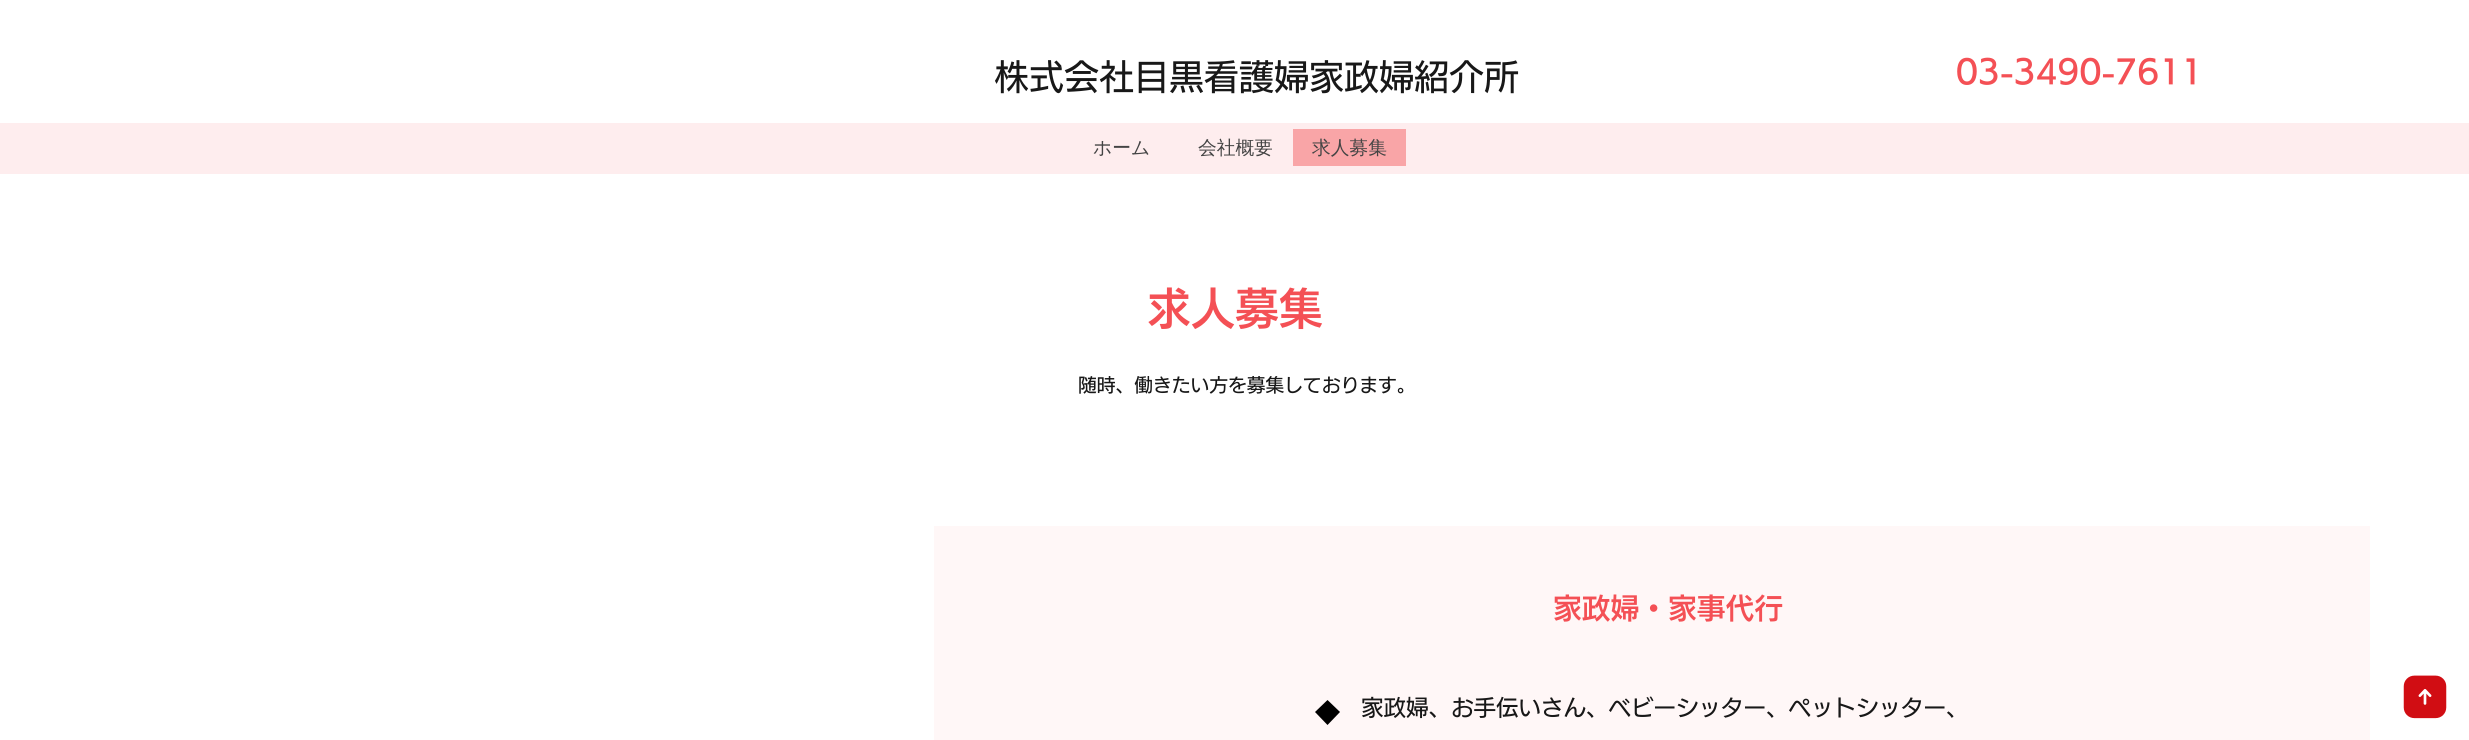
import math
import cairocffi as cairo

surface = cairo.ImageSurface(cairo.FORMAT_RGB24, 2469, 740)
ctx = cairo.Context(surface)
options = cairo.FontOptions()
options.set_hint_metrics(cairo.HINT_METRICS_OFF)
options.set_hint_style(cairo.HINT_STYLE_NONE)
ctx.set_font_options(options)
ctx.set_miter_limit(4)


def rgb(r, g, b):
    ctx.set_source_rgb(r / 255, g / 255, b / 255)


def face(family, size, italic, bold):
    ctx.select_font_face(family, cairo.FONT_SLANT_ITALIC if italic else cairo.FONT_SLANT_NORMAL, cairo.FONT_WEIGHT_BOLD if bold else cairo.FONT_WEIGHT_NORMAL)
    ctx.set_font_size(size)


def label(x, y, s):
    ctx.move_to(x, y)
    ctx.show_text(s)


def rect(x, y, w, h):
    ctx.rectangle(x, y, w, h)
    ctx.fill()


def image(path, x, y, w, h):
    ctx.save()
    ctx.set_source_surface(cairo.ImageSurface.create_from_png(path), x, y)
    ctx.rectangle(x, y, w, h)
    ctx.fill()
    ctx.restore()


rgb(255, 255, 255)
ctx.paint()
face('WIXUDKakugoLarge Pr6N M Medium', 35, 0, 0)
rgb(24, 24, 24)
label(994, 90, '株式会社目黒看護婦家政婦紹介所')
face('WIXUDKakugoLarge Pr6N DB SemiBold', 31.25, 0, 0)
rgb(244, 80, 85)
label(1956, 83, '03-3490-7611')
rgb(254, 237, 238)
rect(0, 123, 2469, 51)
face('WenQuanYi Zen Hei Medium', 18.75, 0, 0)
rgb(68, 68, 68)
label(1093, 154, 'ホーム')
label(1198, 154, '会社概要')
rgb(249, 165, 167)
rect(1293, 129, 113, 37)
rgb(68, 68, 68)
label(1312, 154, '求人募集')
face('WIXUDKakugoLarge Pr6N DB SemiBold', 44, 0, 0)
rgb(244, 80, 85)
label(1147, 325, '求人募集')
face('WIXUDKakugoLarge Pr6N M Medium', 18.75, 0, 0)
rgb(24, 24, 24)
label(1078, 392, '随時、働きたい方を募集しております。')
rgb(255, 247, 247)
rect(934, 526, 1436, 214)
face('WIXUDKakugoLarge Pr6N DB SemiBold', 28.75, 0, 0)
rgb(244, 80, 85)
label(1553, 619, '家政婦・家事代行')
rgb(0, 0, 0)
ctx.new_path()
ctx.move_to(1327.5, 725)
ctx.line_to(1315, 712)
ctx.line_to(1327.5, 700)
ctx.line_to(1340, 712)
ctx.close_path()
ctx.fill()
face('WIXUDKakugoLarge Pr6N M Medium', 22.5, 0, 0)
rgb(24, 24, 24)
label(1361, 716, '家政婦、お手伝いさん、ベビーシッター、ペットシッター、')
image('image0.png', 2403, 675, 44, 44)
surface.write_to_png('render.png')
